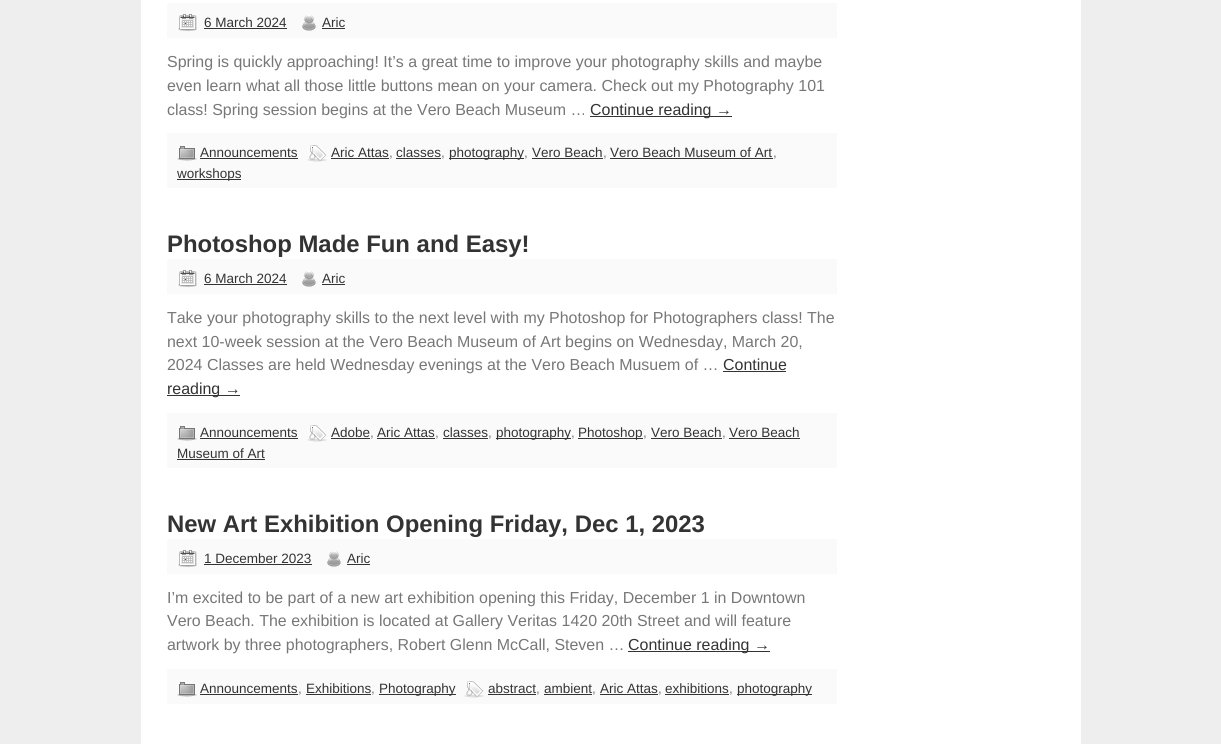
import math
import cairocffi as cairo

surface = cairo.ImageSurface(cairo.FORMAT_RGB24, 1221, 744)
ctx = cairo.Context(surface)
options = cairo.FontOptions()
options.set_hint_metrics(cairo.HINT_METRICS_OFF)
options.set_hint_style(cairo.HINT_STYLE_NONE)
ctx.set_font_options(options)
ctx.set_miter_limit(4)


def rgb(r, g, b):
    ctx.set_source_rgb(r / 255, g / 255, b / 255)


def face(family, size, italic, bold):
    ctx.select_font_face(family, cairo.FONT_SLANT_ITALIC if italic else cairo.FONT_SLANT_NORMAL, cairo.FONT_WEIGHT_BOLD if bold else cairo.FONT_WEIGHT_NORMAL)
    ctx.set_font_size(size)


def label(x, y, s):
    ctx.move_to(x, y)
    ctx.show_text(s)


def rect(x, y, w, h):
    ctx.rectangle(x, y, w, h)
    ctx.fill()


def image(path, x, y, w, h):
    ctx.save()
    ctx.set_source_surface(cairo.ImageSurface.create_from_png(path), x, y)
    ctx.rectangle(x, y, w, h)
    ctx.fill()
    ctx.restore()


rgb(238, 238, 238)
ctx.paint()
rgb(255, 255, 255)
rect(141, 0, 940, 744)
rgb(250, 250, 250)
rect(167, 3, 670, 35)
image('image0.png', 178, 14, 19, 17)
face('Liberation Sans', 13.5, 0, 0)
rgb(51, 51, 51)
label(204, 27, '6 March 2024')
rect(204, 28, 83, 1)
image('image1.png', 302, 15, 14, 16)
label(322, 27, 'Aric')
rect(322, 28, 23, 1)
face('Liberation Sans', 15.95, 0, 0)
rgb(119, 119, 119)
label(167, 67, 'Spring is quickly approaching! It’s a great time to improve your photography skills and maybe')
label(167, 91, 'even learn what all those little buttons mean on your camera. Check out my Photography 101')
label(167, 115, 'class! Spring session begins at the Vero Beach Museum …')
rgb(51, 51, 51)
rect(590, 116, 142, 1)
label(590, 115, 'Continue reading →')
rgb(250, 250, 250)
rect(167, 133, 670, 55)
image('image2.png', 177, 146, 20, 15)
face('Liberation Sans', 13.5, 0, 0)
rgb(51, 51, 51)
label(200, 157, 'Announcements')
rect(200, 158, 98, 1)
image('image3.png', 307, 145, 20, 17)
label(331, 157, 'Aric Attas')
rgb(119, 119, 119)
label(389, 157, ',')
rgb(51, 51, 51)
rect(331, 158, 58, 1)
label(396, 157, 'classes')
rgb(119, 119, 119)
label(441, 157, ',')
rgb(51, 51, 51)
rect(396, 158, 45, 1)
rect(449, 158, 75, 1)
label(449, 157, 'photography')
rgb(119, 119, 119)
label(524, 157, ',')
rgb(51, 51, 51)
label(532, 157, 'Vero Beach')
rgb(119, 119, 119)
label(603, 157, ',')
rgb(51, 51, 51)
rect(532, 158, 71, 1)
label(610, 157, 'Vero Beach Museum of Art')
rgb(119, 119, 119)
label(773, 157, ',')
rgb(51, 51, 51)
rect(610, 158, 163, 1)
rect(177, 179, 64, 1)
label(177, 178, 'workshops')
face('Liberation Sans', 23.9, 0, 1)
label(167, 252, 'Photoshop Made Fun and Easy!')
rgb(250, 250, 250)
rect(167, 259, 670, 35)
image('image0.png', 178, 270, 19, 17)
face('Liberation Sans', 13.5, 0, 0)
rgb(51, 51, 51)
label(204, 283, '6 March 2024')
rect(204, 284, 83, 1)
image('image1.png', 302, 271, 14, 16)
label(322, 283, 'Aric')
rect(322, 284, 23, 1)
face('Liberation Sans', 15.95, 0, 0)
rgb(119, 119, 119)
label(167, 323, 'Take your photography skills to the next level with my Photoshop for Photographers class! The')
label(167, 347, 'next 10-week session at the Vero Beach Museum of Art begins on Wednesday, March 20,')
label(167, 370, '2024 Classes are held Wednesday evenings at the Vero Beach Musuem of …')
rgb(51, 51, 51)
label(723, 370, 'Continue')
rect(723, 371, 63, 1)
rect(167, 395, 73, 1)
label(167, 394, 'reading →')
rgb(250, 250, 250)
rect(167, 413, 670, 55)
image('image2.png', 177, 426, 20, 15)
face('Liberation Sans', 13.5, 0, 0)
rgb(51, 51, 51)
label(200, 437, 'Announcements')
rect(200, 438, 98, 1)
image('image3.png', 307, 425, 20, 17)
label(331, 437, 'Adobe')
rgb(119, 119, 119)
label(370, 437, ',')
rgb(51, 51, 51)
rect(331, 438, 39, 1)
label(377, 437, 'Aric Attas')
rgb(119, 119, 119)
label(435, 437, ',')
rgb(51, 51, 51)
rect(377, 438, 58, 1)
label(443, 437, 'classes')
rgb(119, 119, 119)
label(488, 437, ',')
rgb(51, 51, 51)
rect(443, 438, 45, 1)
rect(496, 438, 75, 1)
label(496, 437, 'photography')
rgb(119, 119, 119)
label(571, 437, ',')
rgb(51, 51, 51)
rect(578, 438, 65, 1)
label(578, 437, 'Photoshop')
rgb(119, 119, 119)
label(643, 437, ',')
rgb(51, 51, 51)
label(651, 437, 'Vero Beach')
rgb(119, 119, 119)
label(722, 437, ',')
rgb(51, 51, 51)
rect(651, 438, 71, 1)
rect(729, 438, 71, 1)
label(729, 437, 'Vero Beach')
label(177, 458, 'Museum of Art')
rect(177, 459, 88, 1)
face('Liberation Sans', 23.9, 0, 1)
label(167, 532, 'New Art Exhibition Opening Friday, Dec 1, 2023')
rgb(250, 250, 250)
rect(167, 539, 670, 35)
image('image0.png', 178, 550, 19, 17)
face('Liberation Sans', 13.5, 0, 0)
rgb(51, 51, 51)
label(204, 563, '1 December 2023')
rect(204, 564, 108, 1)
image('image1.png', 327, 551, 14, 16)
label(347, 563, 'Aric')
rect(347, 564, 23, 1)
face('Liberation Sans', 15.95, 0, 0)
rgb(119, 119, 119)
label(167, 603, 'I’m excited to be part of a new art exhibition opening this Friday, December 1 in Downtown')
label(167, 626, 'Vero Beach. The exhibition is located at Gallery Veritas 1420 20th Street and will feature')
label(167, 650, 'artwork by three photographers, Robert Glenn McCall, Steven …')
rgb(51, 51, 51)
rect(628, 651, 142, 1)
label(628, 650, 'Continue reading →')
rgb(250, 250, 250)
rect(167, 669, 670, 35)
image('image2.png', 177, 682, 20, 15)
face('Liberation Sans', 13.5, 0, 0)
rgb(51, 51, 51)
label(200, 693, 'Announcements')
rgb(119, 119, 119)
label(298, 693, ',')
rgb(51, 51, 51)
rect(200, 694, 98, 1)
label(306, 693, 'Exhibitions')
rgb(119, 119, 119)
label(371, 693, ',')
rgb(51, 51, 51)
rect(306, 694, 65, 1)
rect(379, 694, 77, 1)
label(379, 693, 'Photography')
image('image3.png', 464, 681, 20, 17)
label(488, 693, 'abstract')
rgb(119, 119, 119)
label(536, 693, ',')
rgb(51, 51, 51)
rect(488, 694, 48, 1)
label(544, 693, 'ambient')
rgb(119, 119, 119)
label(592, 693, ',')
rgb(51, 51, 51)
rect(544, 694, 48, 1)
label(600, 693, 'Aric Attas')
rgb(119, 119, 119)
label(658, 693, ',')
rgb(51, 51, 51)
rect(600, 694, 58, 1)
label(665, 693, 'exhibitions')
rgb(119, 119, 119)
label(729, 693, ',')
rgb(51, 51, 51)
rect(665, 694, 64, 1)
rect(737, 694, 75, 1)
label(737, 693, 'photography')
surface.write_to_png('render.png')
